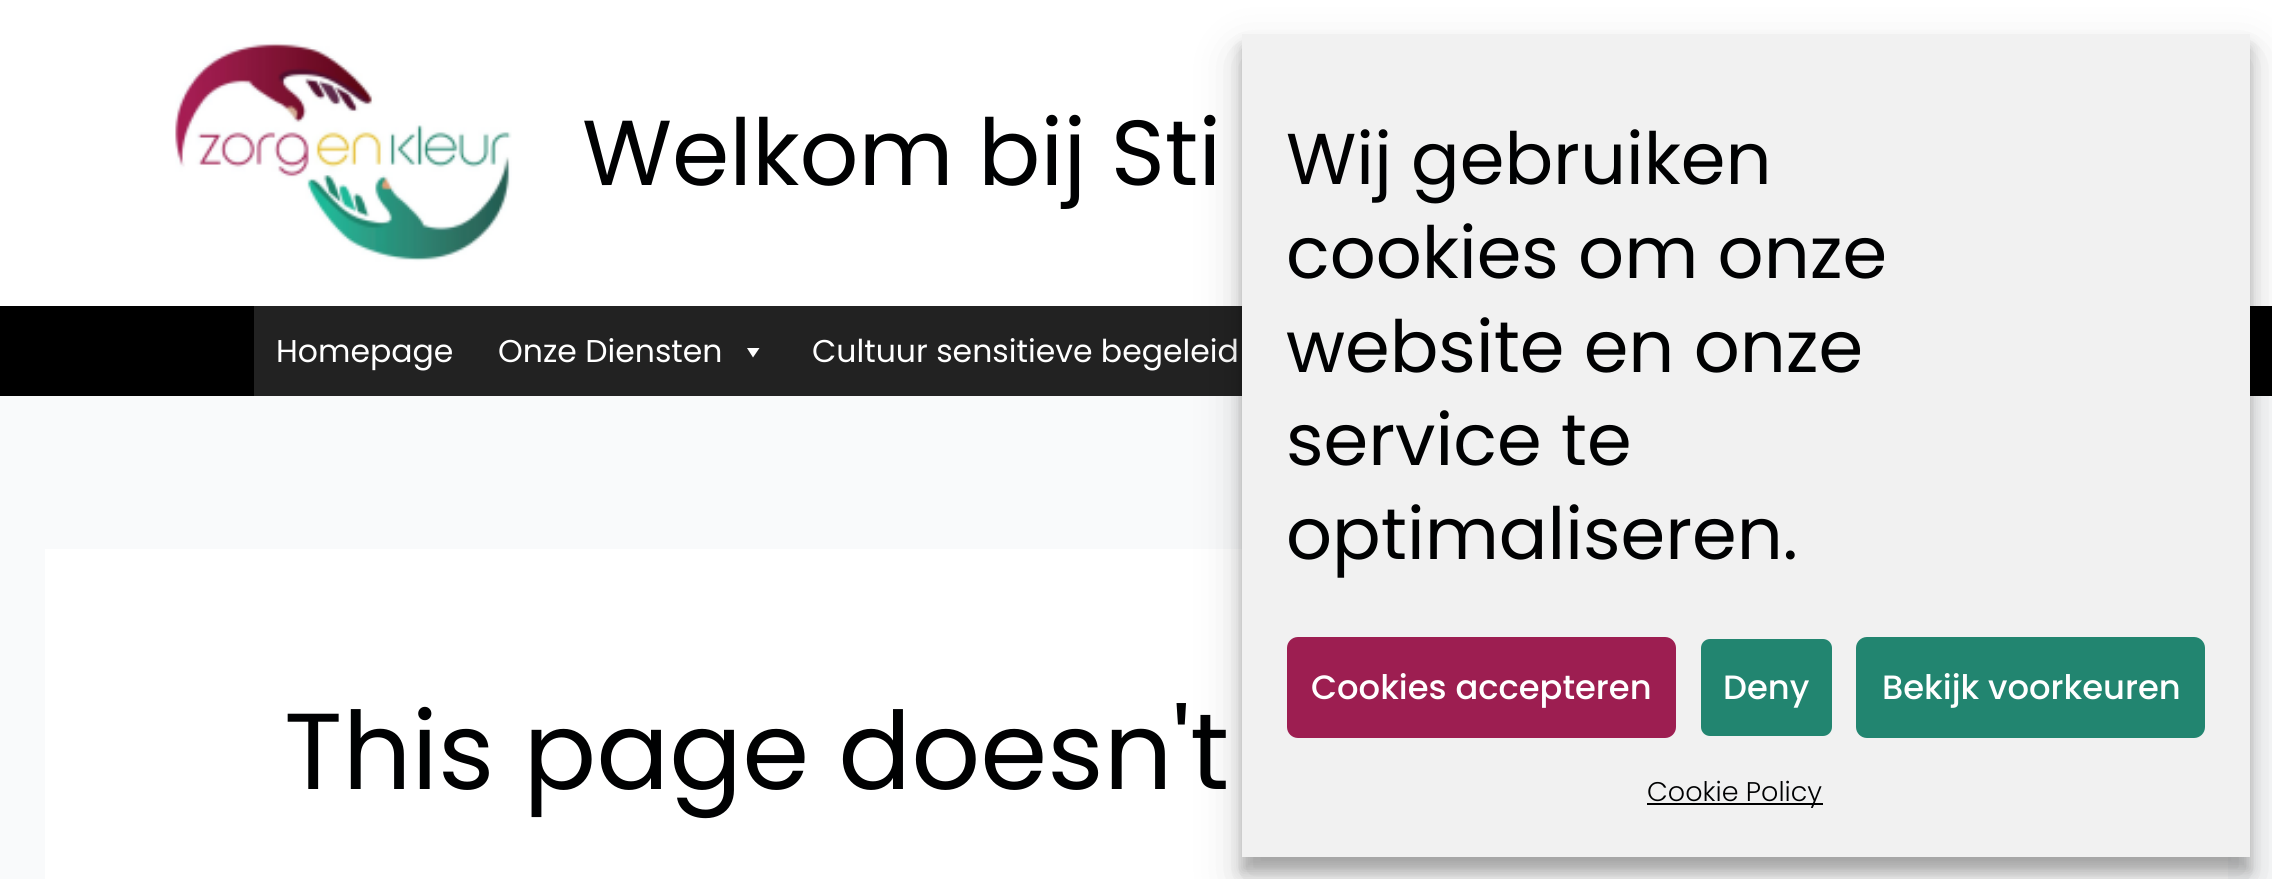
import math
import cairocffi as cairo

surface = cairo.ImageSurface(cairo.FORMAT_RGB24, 2272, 879)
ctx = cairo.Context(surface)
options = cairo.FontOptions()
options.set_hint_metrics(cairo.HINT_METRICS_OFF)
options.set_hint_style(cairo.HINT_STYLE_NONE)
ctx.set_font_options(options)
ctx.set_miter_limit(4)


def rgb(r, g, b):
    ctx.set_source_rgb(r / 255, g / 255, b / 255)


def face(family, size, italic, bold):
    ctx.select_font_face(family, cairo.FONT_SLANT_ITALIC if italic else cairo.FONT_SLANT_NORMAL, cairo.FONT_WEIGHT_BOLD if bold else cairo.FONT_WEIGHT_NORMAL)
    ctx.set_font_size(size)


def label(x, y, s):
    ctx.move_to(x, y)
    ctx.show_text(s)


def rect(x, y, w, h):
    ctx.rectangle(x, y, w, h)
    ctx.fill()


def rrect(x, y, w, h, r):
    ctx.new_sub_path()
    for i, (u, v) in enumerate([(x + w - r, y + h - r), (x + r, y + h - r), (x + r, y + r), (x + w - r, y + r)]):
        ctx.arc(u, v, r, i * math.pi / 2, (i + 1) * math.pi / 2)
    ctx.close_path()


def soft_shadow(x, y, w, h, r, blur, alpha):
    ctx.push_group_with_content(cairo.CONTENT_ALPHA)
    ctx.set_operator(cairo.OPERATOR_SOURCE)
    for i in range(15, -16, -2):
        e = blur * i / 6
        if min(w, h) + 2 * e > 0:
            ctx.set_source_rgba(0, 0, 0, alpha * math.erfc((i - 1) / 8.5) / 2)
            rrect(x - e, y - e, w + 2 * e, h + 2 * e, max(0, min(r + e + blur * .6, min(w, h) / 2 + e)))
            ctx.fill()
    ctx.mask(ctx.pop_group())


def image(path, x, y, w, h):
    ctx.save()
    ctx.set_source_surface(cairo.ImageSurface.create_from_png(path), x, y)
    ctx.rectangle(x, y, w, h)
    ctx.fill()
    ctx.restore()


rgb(249, 250, 251)
ctx.paint()
rgb(255, 255, 255)
rect(0, 0, 2272, 306)
image('image0.png', 175, 41, 337, 221)
face('Poppins', 92.25, 0, 0)
rgb(0, 1, 2)
label(582, 185, 'Welkom bij Sti')
rgb(0, 0, 0)
rect(0, 306, 2272, 90)
rgb(34, 34, 34)
rect(254, 306, 988, 90)
face('Poppins', 31.5, 0, 0)
rgb(255, 255, 255)
label(276, 362, 'Homepage')
label(498, 362, 'Onze Diensten')
ctx.new_path()
ctx.move_to(759.5, 348)
ctx.line_to(753, 357.5)
ctx.line_to(747, 348)
ctx.close_path()
ctx.fill()
label(812, 362, 'Cultuur sensitieve begeleid')
rect(45, 549, 2183, 330)
face('Poppins', 108, 0, 0)
rgb(0, 1, 2)
label(284, 789, 'This page doesn\'t')
rgb(0, 0, 0)
soft_shadow(1242, 47, 1008, 824, 0, 7, 0.23)
soft_shadow(1242, 56, 1008, 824, 0, 22.5, 0.19)
rgb(241, 241, 241)
rect(1242, 34, 1008, 823)
face('Poppins', 72, 0, 0)
rgb(0, 1, 2)
label(1286, 184, 'Wij gebruiken')
label(1286, 278, 'cookies om onze')
label(1286, 372, 'website en onze')
label(1286, 465, 'service te')
label(1286, 559, 'optimaliseren.')
rgb(157, 30, 81)
rrect(1288, 638, 387, 99, 10)
ctx.fill_preserve()
ctx.stroke()
face('Poppins Medium', 33.75, 0, 0)
rgb(255, 255, 255)
label(1311, 699, 'Cookies accepteren')
rgb(34, 133, 112)
rrect(1700, 638, 133, 99, 10)
ctx.fill_preserve()
rgb(241, 241, 241)
ctx.stroke()
rgb(255, 255, 255)
label(1723, 699, 'Deny')
rgb(34, 133, 112)
rrect(1857, 638, 347, 99, 10)
ctx.fill_preserve()
ctx.stroke()
rgb(255, 255, 255)
label(1882, 699, 'Bekijk voorkeuren')
rgb(0, 0, 0)
rect(1647, 803, 176, 2)
face('Poppins Light', 27, 0, 0)
rgb(0, 1, 2)
label(1647, 801, 'Cookie Policy')
surface.write_to_png('render.png')
